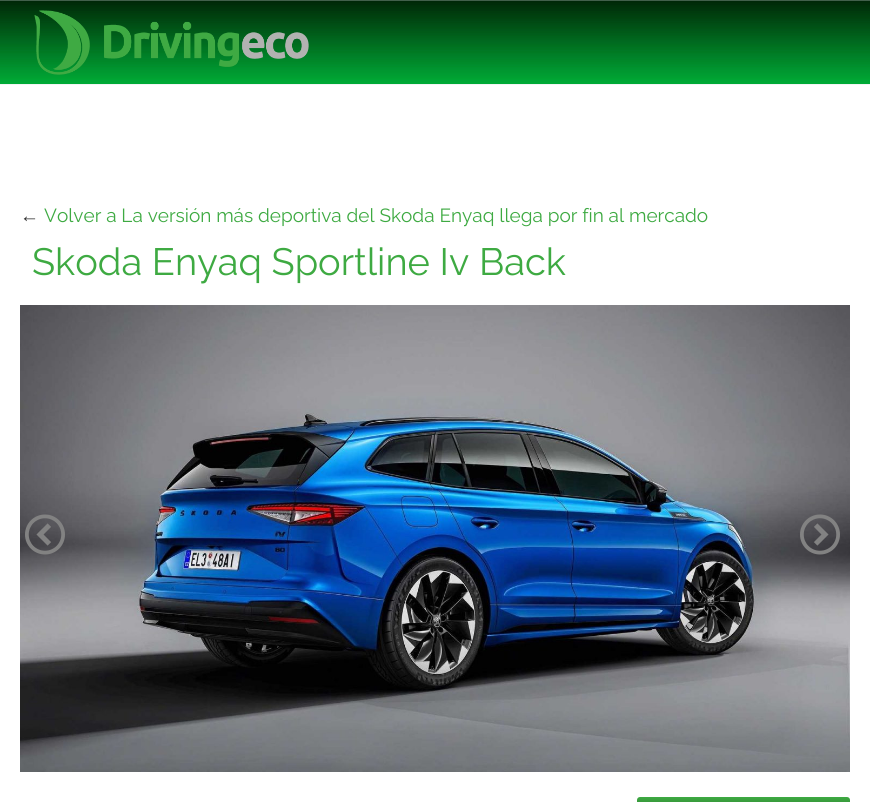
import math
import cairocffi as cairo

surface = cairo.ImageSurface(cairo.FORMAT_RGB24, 870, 802)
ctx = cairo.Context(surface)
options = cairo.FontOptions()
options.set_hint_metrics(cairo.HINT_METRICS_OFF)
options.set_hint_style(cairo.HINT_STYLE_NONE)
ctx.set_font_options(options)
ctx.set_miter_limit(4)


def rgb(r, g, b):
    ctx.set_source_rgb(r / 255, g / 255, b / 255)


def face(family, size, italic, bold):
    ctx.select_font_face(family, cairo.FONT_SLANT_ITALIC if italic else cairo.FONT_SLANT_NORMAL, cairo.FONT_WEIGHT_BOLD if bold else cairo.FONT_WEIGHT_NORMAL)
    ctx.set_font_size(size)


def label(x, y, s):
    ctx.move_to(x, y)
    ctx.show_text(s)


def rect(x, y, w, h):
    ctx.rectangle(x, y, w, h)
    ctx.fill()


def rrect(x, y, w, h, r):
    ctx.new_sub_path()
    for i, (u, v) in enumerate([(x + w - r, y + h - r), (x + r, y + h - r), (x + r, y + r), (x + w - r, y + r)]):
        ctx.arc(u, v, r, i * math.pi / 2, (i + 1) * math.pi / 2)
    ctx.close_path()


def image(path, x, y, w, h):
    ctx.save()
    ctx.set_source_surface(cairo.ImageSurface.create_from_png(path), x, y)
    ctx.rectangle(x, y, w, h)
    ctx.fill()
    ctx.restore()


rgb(244, 244, 244)
ctx.paint()
image('image0.png', 0, 0, 870, 84)
image('image1.png', 34, 10, 275, 65)
rgb(255, 255, 255)
rect(0, 85, 870, 717)
face('Liberation Sans', 19, 0, 0)
rgb(51, 51, 51)
label(20, 222, '←')
face('Raleway', 19, 0, 0)
rgb(62, 170, 66)
label(44, 222, 'Volver a La versión más deportiva del Skoda Enyaq llega por fin al mercado')
face('Raleway', 38, 0, 0)
label(32, 275, 'Skoda Enyaq Sportline Iv Back')
image('image2.png', 20, 305, 830, 467)
image('image3.png', 25, 514, 40, 41)
image('image4.png', 800, 514, 40, 41)
gradient = cairo.LinearGradient(744, 797, 744, 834)
gradient.add_color_stop_rgba(0, 0.243, 0.667, 0.259, 1)
gradient.add_color_stop_rgba(1, 0.075, 0.212, 0.082, 1)
ctx.set_source(gradient)
rrect(637, 797, 213, 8, 3)
ctx.fill()
surface.write_to_png('render.png')
